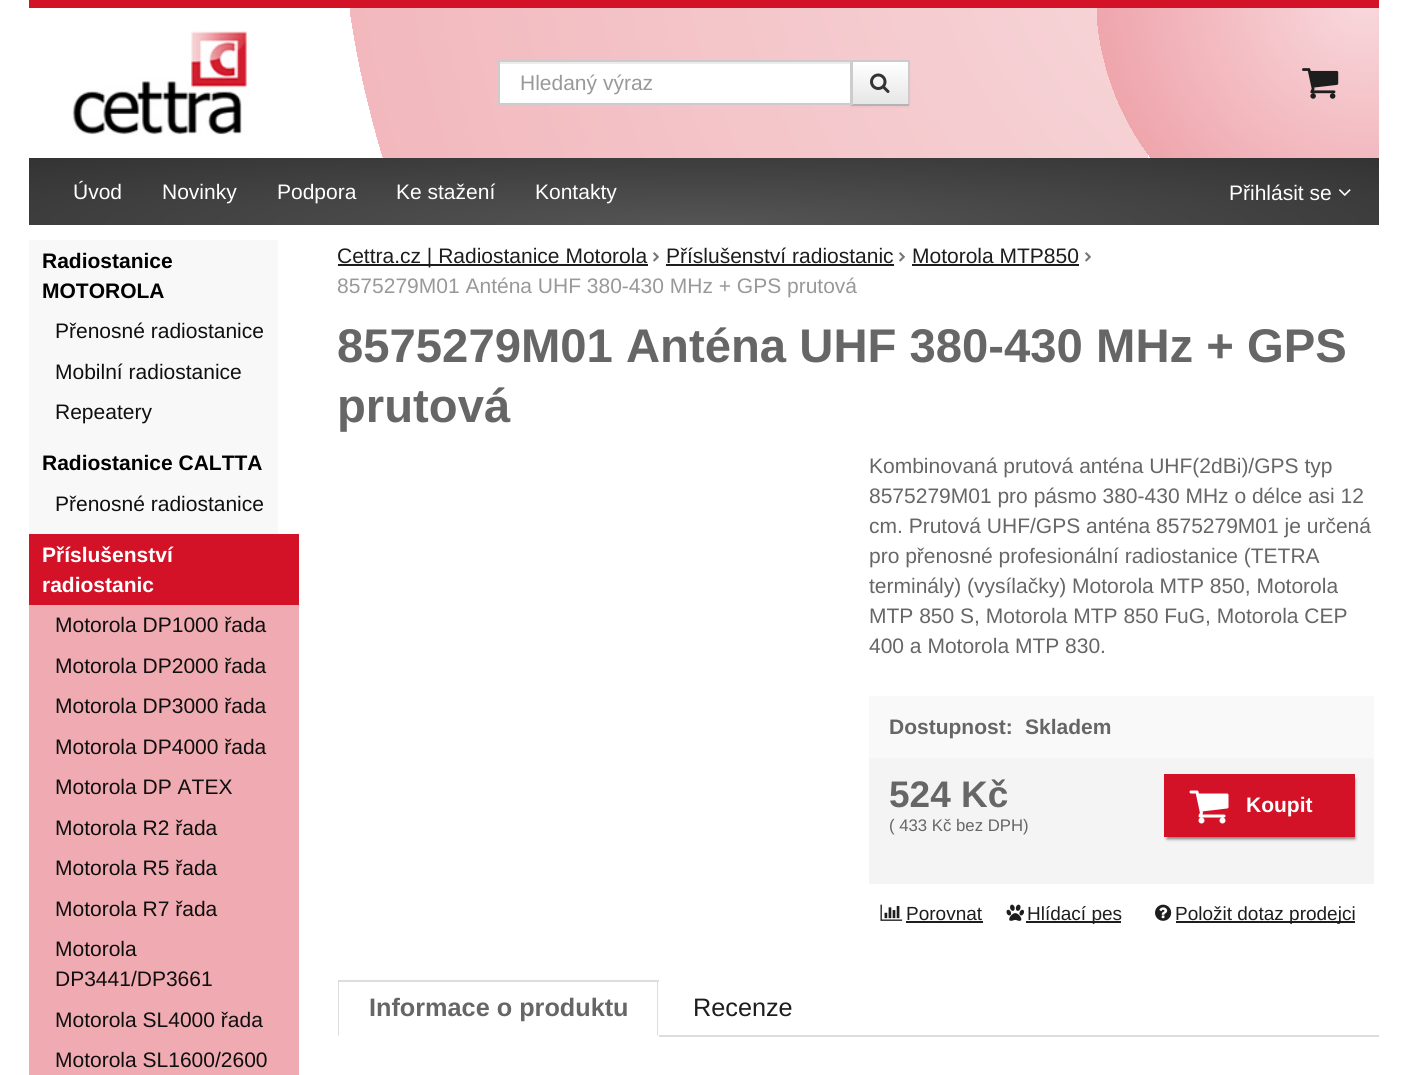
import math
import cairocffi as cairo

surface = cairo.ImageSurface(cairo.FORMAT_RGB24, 1406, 1075)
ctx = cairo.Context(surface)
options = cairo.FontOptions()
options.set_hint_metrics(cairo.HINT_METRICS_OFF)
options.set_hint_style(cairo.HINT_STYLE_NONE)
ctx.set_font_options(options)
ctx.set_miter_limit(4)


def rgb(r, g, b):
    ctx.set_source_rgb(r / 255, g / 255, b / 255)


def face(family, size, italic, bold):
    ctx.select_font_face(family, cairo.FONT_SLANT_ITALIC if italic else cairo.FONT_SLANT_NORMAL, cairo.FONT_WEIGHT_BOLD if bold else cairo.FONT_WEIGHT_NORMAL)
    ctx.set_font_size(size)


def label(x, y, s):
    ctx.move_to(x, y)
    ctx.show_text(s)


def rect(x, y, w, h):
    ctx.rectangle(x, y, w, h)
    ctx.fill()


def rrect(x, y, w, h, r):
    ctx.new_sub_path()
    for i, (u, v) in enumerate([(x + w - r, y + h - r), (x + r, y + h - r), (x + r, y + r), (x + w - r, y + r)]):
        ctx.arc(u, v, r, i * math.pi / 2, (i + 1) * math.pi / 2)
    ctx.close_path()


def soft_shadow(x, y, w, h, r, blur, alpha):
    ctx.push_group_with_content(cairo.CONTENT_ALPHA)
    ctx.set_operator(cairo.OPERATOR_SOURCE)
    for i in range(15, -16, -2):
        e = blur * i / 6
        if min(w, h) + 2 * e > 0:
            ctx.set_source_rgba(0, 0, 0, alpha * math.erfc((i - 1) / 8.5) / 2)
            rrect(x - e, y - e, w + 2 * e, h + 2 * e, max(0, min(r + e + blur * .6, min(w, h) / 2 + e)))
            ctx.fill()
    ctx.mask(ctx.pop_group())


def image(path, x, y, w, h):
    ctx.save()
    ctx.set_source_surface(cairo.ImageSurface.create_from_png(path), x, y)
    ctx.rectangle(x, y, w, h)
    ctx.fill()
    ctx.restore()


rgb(255, 255, 255)
ctx.paint()
gradient = cairo.RadialGradient(1365, -141, 0, 1365, -141, 1369)
gradient.add_color_stop_rgba(0, 1, 1, 1, 1)
gradient.add_color_stop_rgba(0.2, 1, 1, 1, 1)
gradient.add_color_stop_rgba(0.2, 0.965, 0.831, 0.843, 1)
gradient.add_color_stop_rgba(0.75, 0.949, 0.722, 0.741, 1)
gradient.add_color_stop_rgba(0.75, 1, 1, 1, 1)
gradient.add_color_stop_rgba(1, 1, 1, 1, 1)
ctx.set_source(gradient)
rect(350, 8, 798, 150)
gradient = cairo.RadialGradient(1365, -4.5, 0, 1365, -4.5, 1346)
gradient.add_color_stop_rgba(0, 0.973, 0.851, 0.867, 1)
gradient.add_color_stop_rgba(0.2, 0.937, 0.647, 0.675, 1)
gradient.add_color_stop_rgba(0.2, 0.937, 0.647, 0.675, 0)
gradient.add_color_stop_rgba(1, 0, 0, 0, 0)
ctx.set_source(gradient)
rect(1097, 8, 282, 150)
rgb(212, 18, 39)
rect(29, 0, 1350, 8)
image('image0.png', 72, 30, 178, 105)
rgb(0, 0, 0)
soft_shadow(851, 62, 58, 45, 0, 1.5, 0.05)
rgb(255, 255, 255)
rect(500, 64, 350, 39)
rgb(236, 236, 236)
rect(500, 62, 351, 2)
rgb(204, 204, 204)
rect(851, 60, 58, 2)
rect(908, 60, 2, 45)
rgb(179, 179, 179)
rect(851, 104, 58, 2)
ctx.rectangle(499, 61, 352, 43)
rgb(204, 204, 204)
ctx.stroke()
face('Liberation Sans', 21, 0, 0)
rgb(153, 153, 153)
label(520, 90, 'Hledaný výraz')
gradient = cairo.LinearGradient(880, 62, 880, 104)
gradient.add_color_stop_rgba(0, 1, 1, 1, 1)
gradient.add_color_stop_rgba(1, 0.902, 0.902, 0.902, 1)
ctx.set_source(gradient)
rect(853, 62, 55, 42)
rgb(204, 204, 204)
rect(852, 60, 1, 45)
image('image1.png', 870, 73, 20, 20)
image('image2.png', 1302, 68, 37, 31)
gradient = cairo.RadialGradient(0, 0, 0, 0, 0, 1)
gradient.set_matrix(cairo.Matrix(1 / 955, 0, 0, 1 / 95, -1 * 704 / 955, -1 * 225 / 95))
gradient.add_color_stop_rgba(0, 0.333, 0.333, 0.333, 1)
gradient.add_color_stop_rgba(1, 0.2, 0.2, 0.2, 1)
ctx.set_source(gradient)
rect(29, 158, 1350, 67)
rgb(255, 255, 255)
label(73, 199, 'Úvod')
label(162, 199, 'Novinky')
label(277, 199, 'Podpora')
label(396, 199, 'Ke stažení')
label(535, 199, 'Kontakty')
label(1229, 200, 'Přihlásit se')
image('image3.png', 1339, 189, 12, 7)
rgb(248, 248, 248)
rect(29, 240, 249, 294)
rgb(29, 29, 29)
rect(338, 264, 310, 2)
label(337, 263, 'Cettra.cz | Radiostanice Motorola')
image('image4.png', 653, 252, 6, 10)
label(666, 263, 'Příslušenství radiostanic')
rect(666, 264, 228, 2)
image('image4.png', 899, 252, 6, 10)
label(912, 263, 'Motorola MTP850')
rect(912, 264, 167, 2)
image('image4.png', 1085, 252, 6, 10)
rgb(153, 153, 153)
label(337, 293, '8575279M01 Anténa UHF 380-430 MHz + GPS prutová')
face('Liberation Sans', 47.25, 0, 1)
rgb(102, 102, 102)
label(337, 362, '8575279M01 Anténa UHF 380-430 MHz + GPS')
label(337, 422, 'prutová')
face('Liberation Sans', 21, 0, 0)
label(869, 473, 'Kombinovaná prutová anténa UHF(2dBi)/GPS typ')
label(869, 503, '8575279M01 pro pásmo 380-430 MHz o délce asi 12')
label(869, 533, 'cm. Prutová UHF/GPS anténa 8575279M01 je určená')
label(869, 563, 'pro přenosné profesionální radiostanice (TETRA')
label(869, 593, 'terminály) (vysílačky) Motorola MTP 850, Motorola')
label(869, 623, 'MTP 850 S, Motorola MTP 850 FuG, Motorola CEP')
label(869, 653, '400 a Motorola MTP 830.')
rgb(249, 249, 249)
rect(869, 696, 505, 62)
face('Liberation Sans', 21, 0, 1)
rgb(102, 102, 102)
label(889, 734, 'Dostupnost:')
label(1025, 734, 'Skladem')
rgb(244, 244, 244)
rect(869, 758, 505, 126)
face('Liberation Sans', 37, 0, 1)
rgb(102, 102, 102)
label(889, 807, '524 Kč')
face('Liberation Sans', 16.75, 0, 0)
label(889, 831, '( 433 Kč bez DPH)')
rgb(0, 0, 0)
soft_shadow(1167, 779, 188, 60, 0, 1.5, 0.5)
rgb(212, 18, 39)
rect(1164, 774, 191, 63)
image('image5.png', 1189, 790, 40, 34)
face('Liberation Sans', 21, 0, 1)
rgb(255, 255, 255)
label(1246, 812, 'Koupit')
image('image6.png', 880, 904, 23, 17)
face('Liberation Sans', 19, 0, 0)
rgb(29, 29, 29)
label(906, 920, 'Porovnat')
rect(906, 921, 77, 2)
image('image7.png', 1006, 904, 18, 17)
rect(1026, 921, 95, 2)
label(1027, 920, 'Hlídací pes')
image('image8.png', 1155, 904, 17, 17)
rect(1176, 921, 179, 2)
label(1175, 920, 'Položit dotaz prodejci')
rgb(221, 221, 221)
rect(659, 1035, 720, 2)
rect(338, 980, 321, 2)
ctx.new_path()
ctx.move_to(658, 980)
ctx.line_to(658, 1036)
ctx.line_to(657, 1035)
ctx.line_to(657, 981)
ctx.close_path()
ctx.fill()
ctx.new_path()
ctx.move_to(338, 1036)
ctx.line_to(338, 980)
ctx.line_to(339, 981)
ctx.line_to(339, 1035)
ctx.close_path()
ctx.fill()
face('Liberation Sans', 25.25, 0, 1)
rgb(102, 102, 102)
label(369, 1016, 'Informace o produktu')
face('Liberation Sans', 25.25, 0, 0)
rgb(29, 29, 29)
label(693, 1016, 'Recenze')
face('Liberation Sans', 21, 0, 1)
rgb(0, 0, 0)
label(42, 268, 'Radiostanice')
label(42, 298, 'MOTOROLA')
face('Liberation Sans', 21, 0, 0)
rgb(15, 15, 15)
label(55, 338, 'Přenosné radiostanice')
label(55, 379, 'Mobilní radiostanice')
label(55, 419, 'Repeatery')
face('Liberation Sans', 21, 0, 1)
rgb(0, 0, 0)
label(42, 470, 'Radiostanice CALTTA')
face('Liberation Sans', 21, 0, 0)
rgb(15, 15, 15)
label(55, 511, 'Přenosné radiostanice')
rgb(212, 18, 39)
rect(29, 534, 270, 71)
face('Liberation Sans', 21, 0, 1)
rgb(255, 255, 255)
label(42, 562, 'Příslušenství')
label(42, 592, 'radiostanic')
rgb(240, 170, 177)
rect(29, 605, 270, 470)
face('Liberation Sans', 21, 0, 0)
rgb(15, 15, 15)
label(55, 632, 'Motorola DP1000 řada')
label(55, 673, 'Motorola DP2000 řada')
label(55, 713, 'Motorola DP3000 řada')
label(55, 754, 'Motorola DP4000 řada')
label(55, 794, 'Motorola DP ATEX')
label(55, 835, 'Motorola R2 řada')
label(55, 875, 'Motorola R5 řada')
label(55, 916, 'Motorola R7 řada')
label(55, 956, 'Motorola')
label(55, 986, 'DP3441/DP3661')
label(55, 1027, 'Motorola SL4000 řada')
label(55, 1067, 'Motorola SL1600/2600')
surface.write_to_png('render.png')
